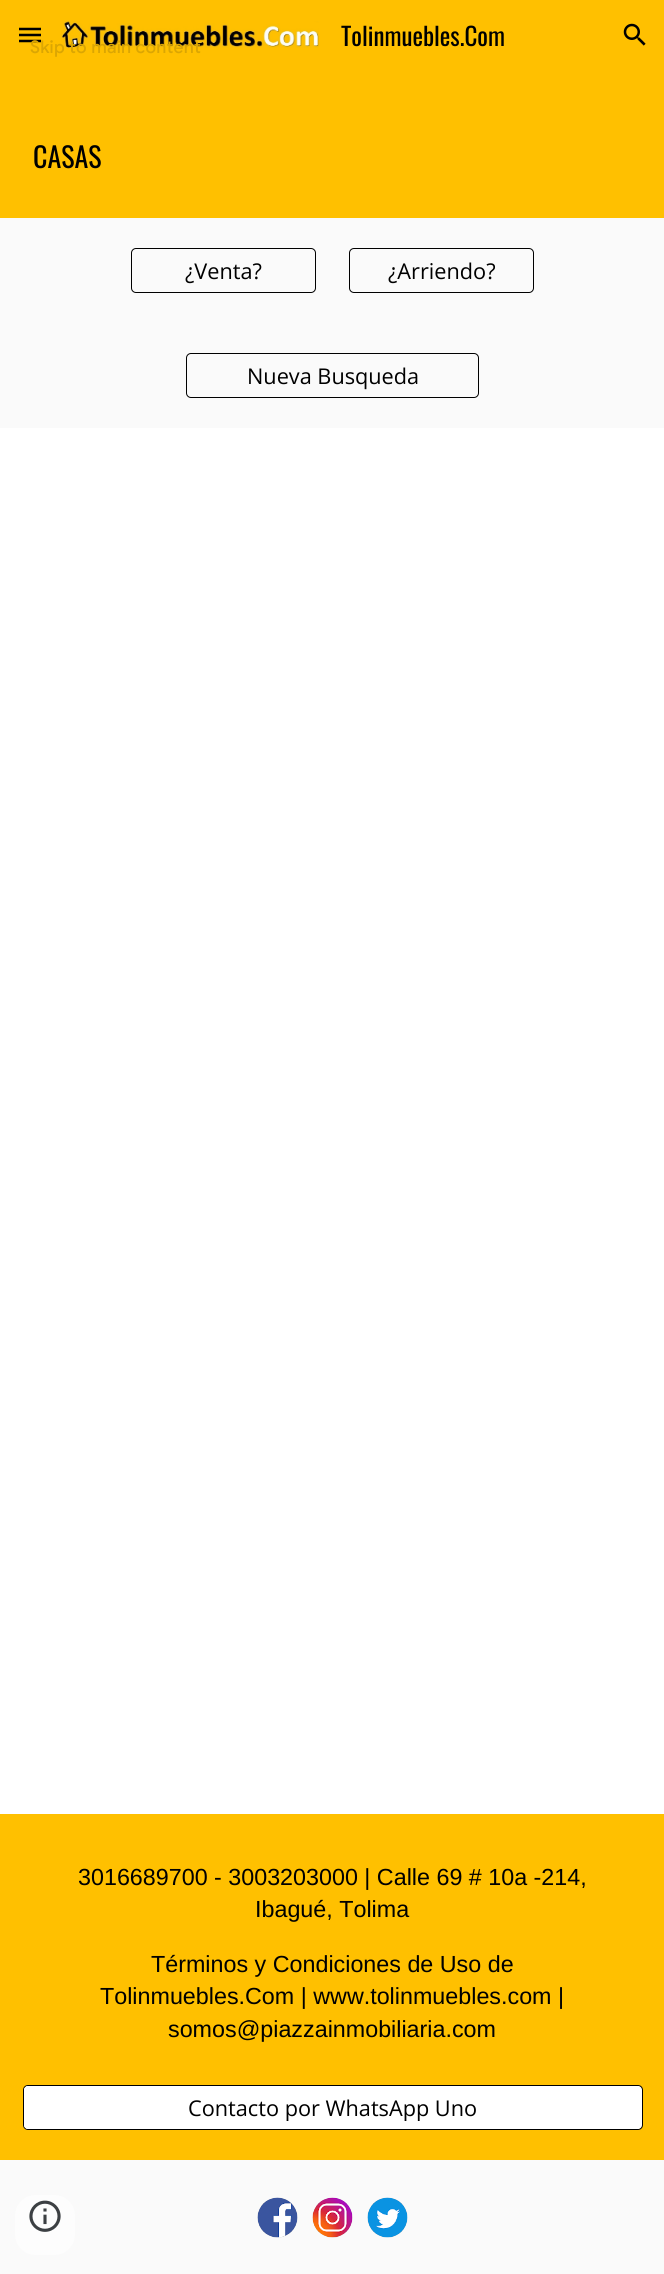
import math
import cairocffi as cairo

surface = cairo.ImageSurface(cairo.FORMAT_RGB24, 664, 2274)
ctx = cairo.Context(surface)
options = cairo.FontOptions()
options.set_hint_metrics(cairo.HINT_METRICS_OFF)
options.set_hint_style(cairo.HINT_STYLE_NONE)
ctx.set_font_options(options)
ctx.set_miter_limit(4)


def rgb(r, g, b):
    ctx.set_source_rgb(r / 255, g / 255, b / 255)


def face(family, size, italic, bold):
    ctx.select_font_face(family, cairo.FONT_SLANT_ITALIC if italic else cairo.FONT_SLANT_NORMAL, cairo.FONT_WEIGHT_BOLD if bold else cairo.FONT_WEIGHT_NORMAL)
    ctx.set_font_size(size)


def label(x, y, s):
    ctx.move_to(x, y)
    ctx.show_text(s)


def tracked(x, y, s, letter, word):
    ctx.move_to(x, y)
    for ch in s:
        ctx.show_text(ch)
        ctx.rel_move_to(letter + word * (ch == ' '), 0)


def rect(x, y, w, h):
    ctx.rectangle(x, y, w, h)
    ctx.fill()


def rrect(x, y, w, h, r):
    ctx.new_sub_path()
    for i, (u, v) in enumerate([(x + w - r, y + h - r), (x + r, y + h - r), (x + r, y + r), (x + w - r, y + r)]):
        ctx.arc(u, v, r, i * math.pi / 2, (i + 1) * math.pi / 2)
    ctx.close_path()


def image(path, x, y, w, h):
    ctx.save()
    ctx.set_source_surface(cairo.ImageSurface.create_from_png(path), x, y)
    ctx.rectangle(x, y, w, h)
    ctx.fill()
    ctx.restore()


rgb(255, 255, 255)
ctx.paint()
rgb(255, 192, 0)
rect(0, 0, 664, 218)
ctx.new_path()
ctx.move_to(19, 29)
ctx.line_to(41, 29)
ctx.move_to(19, 35)
ctx.line_to(41, 35)
ctx.move_to(19, 41)
ctx.line_to(41, 41)
rgb(0, 0, 0)
ctx.set_line_width(2.5)
ctx.stroke()
image('image0.png', 61, 21, 258, 27)
face('Oswald', 25, 0, 0)
label(341, 46, 'Tolinmuebles.Com')
image('image1.png', 623, 23, 23, 23)
face('Oswald', 28, 0, 0)
label(33, 168, 'CASAS')
rgb(250, 250, 250)
rect(0, 218, 664, 210)
rrect(131.5, 248.5, 184, 44, 4.5)
rgb(0, 0, 0)
ctx.set_line_width(1)
ctx.stroke()
face('Open Sans', 21.7, 0, 0)
label(185, 279, '¿Venta?')
rrect(349.5, 248.5, 184, 44, 4.5)
ctx.stroke()
label(388, 279, '¿Arriendo?')
rrect(186.5, 353.5, 292, 44, 4.5)
ctx.stroke()
label(247, 384, 'Nueva Busqueda')
rgb(255, 192, 0)
rect(0, 1814, 664, 346)
face('Liberation Sans', 23.3, 0, 0)
rgb(0, 0, 0)
label(78, 1885, '3016689700 - 3003203000 | Calle 69 # 10a -214,')
label(255, 1917, 'Ibagué, Tolima')
label(151, 1972, 'Términos y Condiciones de Uso de')
label(100, 2004, 'Tolinmuebles.Com | www.tolinmuebles.com |')
label(168, 2037, 'somos@piazzainmobiliaria.com')
rgb(255, 255, 255)
rrect(23.5, 2085.5, 619, 44, 4.5)
ctx.fill_preserve()
rgb(0, 0, 0)
ctx.stroke()
rgb(255, 255, 255)
rrect(24, 2086, 617, 43, 4)
ctx.fill()
ctx.save()
ctx.rectangle(31, 2094, 603, 27)
ctx.clip()
face('Open Sans', 21.7, 0, 0)
rgb(0, 0, 0)
label(188, 2116, 'Contacto por WhatsApp Uno')
ctx.restore()
rgb(250, 250, 250)
rect(0, 2160, 664, 114)
image('image2.png', 257, 2197, 41, 41)
image('image3.png', 312, 2197, 41, 41)
image('image4.png', 367, 2197, 41, 41)
rgb(253, 253, 253)
rrect(15, 2195, 60, 60, 21)
ctx.fill()
image('image5.png', 29, 2200, 32, 32)
face('Google Sans Medium', 17.5, 0, 0)
rgb(219, 166, 3)
tracked(30, 53, 'Skip to main content', 0.2, 0)
surface.write_to_png('render.png')
